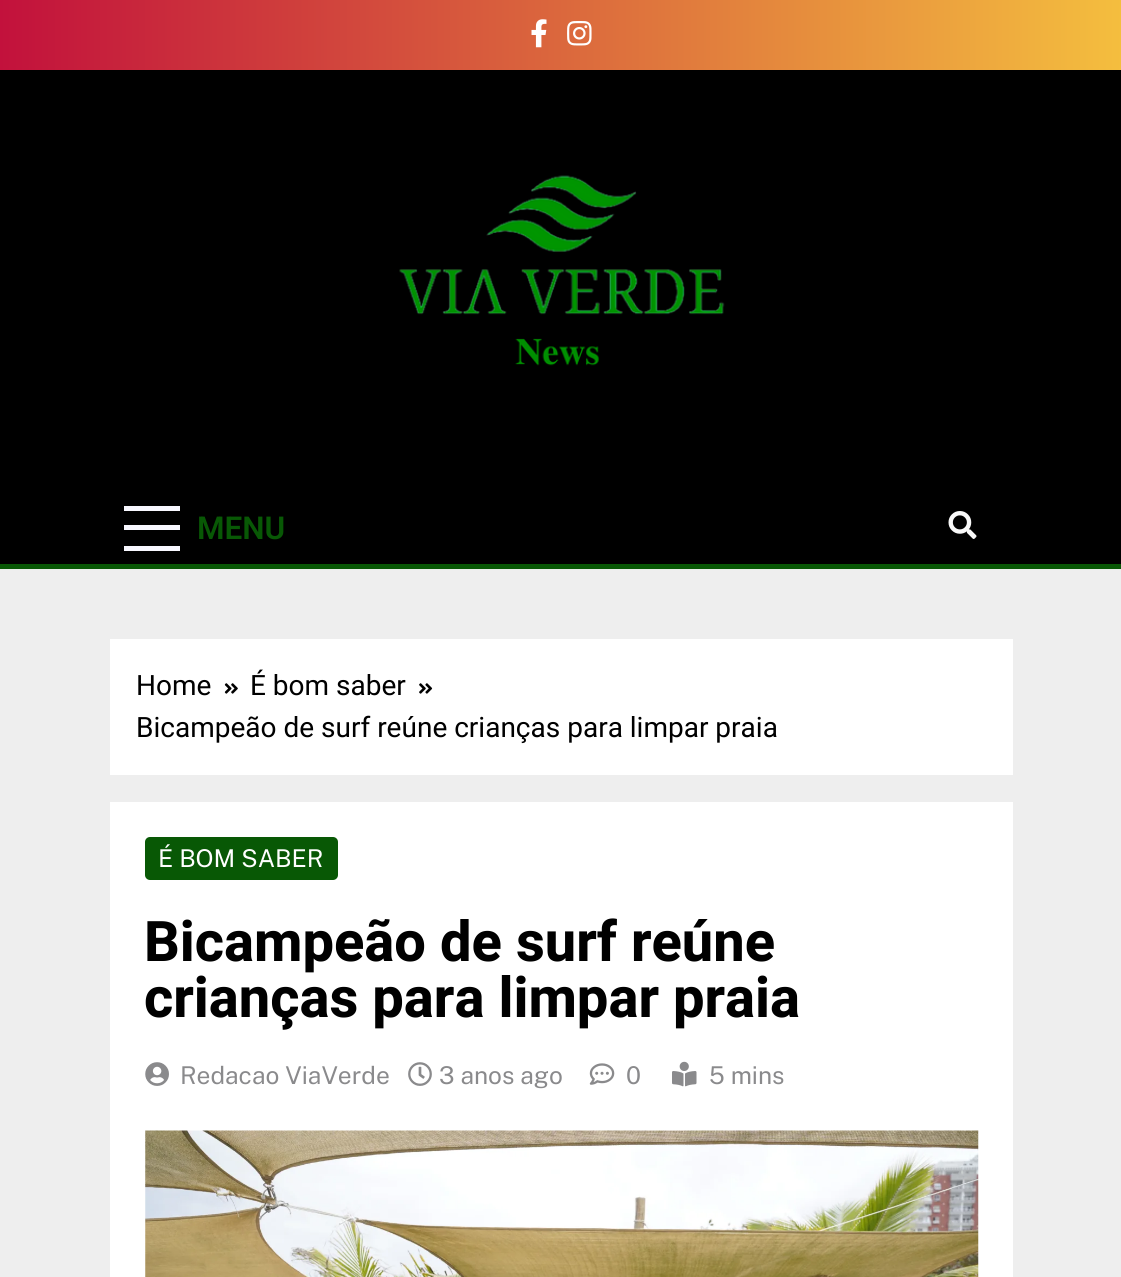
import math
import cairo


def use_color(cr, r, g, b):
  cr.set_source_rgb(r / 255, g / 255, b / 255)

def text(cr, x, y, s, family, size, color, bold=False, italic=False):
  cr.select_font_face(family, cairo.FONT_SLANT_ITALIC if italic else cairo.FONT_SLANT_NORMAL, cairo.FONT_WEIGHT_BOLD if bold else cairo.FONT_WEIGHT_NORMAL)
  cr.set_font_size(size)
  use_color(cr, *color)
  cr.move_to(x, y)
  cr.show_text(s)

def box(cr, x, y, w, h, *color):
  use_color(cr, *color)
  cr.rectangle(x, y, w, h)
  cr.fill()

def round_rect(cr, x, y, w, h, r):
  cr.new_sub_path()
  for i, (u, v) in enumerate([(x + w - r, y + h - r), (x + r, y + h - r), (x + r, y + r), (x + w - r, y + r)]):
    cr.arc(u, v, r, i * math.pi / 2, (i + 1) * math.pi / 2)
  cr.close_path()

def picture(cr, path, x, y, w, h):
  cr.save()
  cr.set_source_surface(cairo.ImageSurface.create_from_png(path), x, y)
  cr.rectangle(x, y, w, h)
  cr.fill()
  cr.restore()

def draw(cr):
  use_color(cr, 238, 238, 238)
  cr.paint()
  gradient = cairo.LinearGradient(0, 35, 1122, 35)
  gradient.add_color_stop_rgba(0, 0.761, 0.067, 0.235, 1)
  gradient.add_color_stop_rgba(1, 0.957, 0.745, 0.243, 1)
  cr.set_source(gradient)
  cr.rectangle(0, 0, 1121, 70)
  cr.fill()
  picture(cr, "img_01.png", 531, 19, 16, 29)
  picture(cr, "img_02.png", 567, 21, 25, 25)
  box(cr, 0, 70, 1121, 494, 0, 0, 0)
  picture(cr, "img_03.png", 399, 175, 326, 191)
  box(cr, 0, 564, 1121, 5, 8, 88, 5)
  box(cr, 124, 506, 56, 5, 248, 248, 255)
  box(cr, 124, 525, 56, 5, 248, 248, 255)
  box(cr, 124, 546, 56, 5, 248, 248, 255)
  picture(cr, "img_04.png", 948, 511, 29, 28)
  box(cr, 110, 639, 903, 136, 255, 255, 255)
  picture(cr, "img_05.png", 224, 683, 14, 11)
  picture(cr, "img_06.png", 419, 683, 14, 11)
  box(cr, 110, 802, 903, 475, 255, 255, 255)
  use_color(cr, 8, 88, 5)
  round_rect(cr, 145, 837, 193, 43, 5)
  cr.fill()
  picture(cr, "img_07.png", 145, 1062, 24, 24)
  picture(cr, "img_08.png", 408, 1062, 24, 24)
  picture(cr, "img_09.png", 589, 1063, 26, 22)
  picture(cr, "img_10.png", 672, 1061, 25, 26)
  picture(cr, "img_11.png", 145, 1130, 834, 147)
  text(cr, 197, 539, "MENU", "Roboto SemiBold", 31.5, (8, 88, 5))
  text(cr, 136, 695, "Home", "Heebo", 28, (0, 0, 0))
  text(cr, 250, 695, "É bom saber", "Heebo", 28, (0, 0, 0))
  text(cr, 136, 737, "Bicampeão de surf reúne crianças para limpar praia", "Heebo", 28, (0, 0, 0))
  text(cr, 158, 867, "É BOM SABER", "Public Sans", 24.5, (255, 255, 255))
  text(cr, 144, 961, "Bicampeão de surf reúne", "Heebo", 56, (0, 0, 0), bold=True)
  text(cr, 144, 1017, "crianças para limpar praia", "Heebo", 56, (0, 0, 0), bold=True)
  text(cr, 180, 1084, "Redacao ViaVerde", "Public Sans", 24.5, (138, 138, 140))
  text(cr, 439, 1084, "3 anos ago", "Public Sans", 24.5, (138, 138, 140))
  text(cr, 626, 1084, "0", "Public Sans", 24.5, (138, 138, 140))
  text(cr, 709, 1084, "5 mins", "Public Sans", 24.5, (138, 138, 140))


surface = cairo.ImageSurface(cairo.FORMAT_RGB24, 1121, 1277)
cr = cairo.Context(surface)
options = cairo.FontOptions()
options.set_hint_metrics(cairo.HINT_METRICS_OFF)
options.set_hint_style(cairo.HINT_STYLE_NONE)
cr.set_font_options(options)
cr.set_miter_limit(4)
draw(cr)
surface.write_to_png("out.png")
